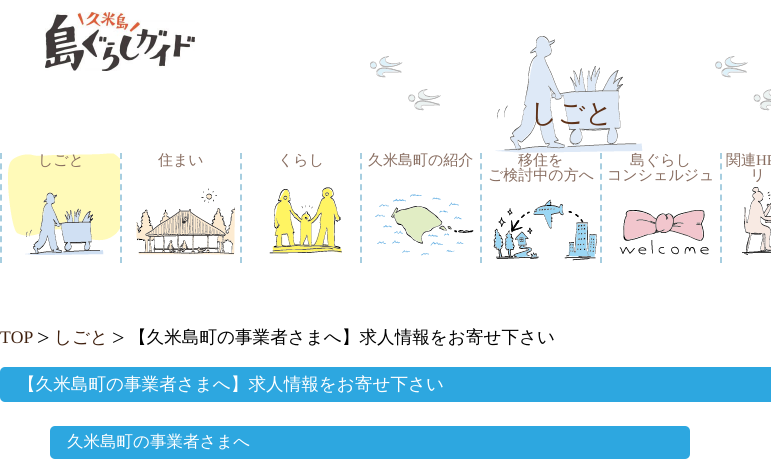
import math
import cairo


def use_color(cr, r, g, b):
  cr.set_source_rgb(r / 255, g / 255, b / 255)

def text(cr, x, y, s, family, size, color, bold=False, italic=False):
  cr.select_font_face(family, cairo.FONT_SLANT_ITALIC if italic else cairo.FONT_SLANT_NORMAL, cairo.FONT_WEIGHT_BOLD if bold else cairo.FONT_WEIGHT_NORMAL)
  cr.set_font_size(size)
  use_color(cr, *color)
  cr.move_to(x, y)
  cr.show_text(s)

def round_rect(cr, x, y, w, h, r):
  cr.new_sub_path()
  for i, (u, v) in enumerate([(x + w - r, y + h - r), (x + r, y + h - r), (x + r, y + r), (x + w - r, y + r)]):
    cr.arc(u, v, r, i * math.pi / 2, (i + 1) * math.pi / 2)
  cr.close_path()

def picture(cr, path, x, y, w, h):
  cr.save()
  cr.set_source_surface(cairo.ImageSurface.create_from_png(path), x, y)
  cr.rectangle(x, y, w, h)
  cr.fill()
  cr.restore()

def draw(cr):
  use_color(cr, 255, 255, 255)
  cr.paint()
  picture(cr, "img_01.png", 370, 36, 401, 117)
  picture(cr, "img_02.png", 45, 12, 150, 59)
  cr.new_path()
  cr.move_to(1, 153)
  cr.line_to(1, 263)
  use_color(cr, 167, 206, 224)
  cr.set_dash([6, 4.4])
  cr.stroke()
  picture(cr, "img_03.png", 8, 153, 112, 102)
  cr.new_path()
  cr.move_to(121, 153)
  cr.line_to(121, 263)
  cr.stroke()
  picture(cr, "img_04.png", 136, 188, 99, 67)
  cr.new_path()
  cr.move_to(241, 153)
  cr.line_to(241, 263)
  cr.stroke()
  picture(cr, "img_05.png", 269, 187, 73, 67)
  cr.new_path()
  cr.move_to(361, 153)
  cr.line_to(361, 263)
  cr.stroke()
  picture(cr, "img_06.png", 375, 194, 99, 62)
  cr.new_path()
  cr.move_to(481, 153)
  cr.line_to(481, 263)
  cr.stroke()
  picture(cr, "img_07.png", 493, 199, 104, 62)
  cr.new_path()
  cr.move_to(601, 153)
  cr.line_to(601, 263)
  cr.stroke()
  picture(cr, "img_08.png", 619, 210, 90, 45)
  cr.new_path()
  cr.move_to(721, 153)
  cr.line_to(721, 263)
  cr.stroke()
  picture(cr, "img_09.png", 742, 187, 29, 68)
  use_color(cr, 45, 167, 224)
  round_rect(cr, 0, 367, 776, 35, 5)
  cr.fill()
  round_rect(cr, 50, 426, 640, 33, 5)
  cr.fill()
  text(cr, 530, 122, "しごと", "WenQuanYi Zen Hei Medium", 27, (93, 49, 24))
  text(cr, 38, 165, "しごと", "WenQuanYi Zen Hei Medium", 15, (136, 109, 96))
  text(cr, 158, 165, "住まい", "WenQuanYi Zen Hei Medium", 15, (136, 109, 96))
  text(cr, 278, 165, "くらし", "WenQuanYi Zen Hei Medium", 15, (136, 109, 96))
  text(cr, 368, 165, "久米島町の紹介", "WenQuanYi Zen Hei Medium", 15, (136, 109, 96))
  text(cr, 518, 165, "移住を", "WenQuanYi Zen Hei Medium", 15, (136, 109, 96))
  text(cr, 488, 180, "ご検討中の方へ", "WenQuanYi Zen Hei Medium", 15, (136, 109, 96))
  text(cr, 630, 165, "島ぐらし", "WenQuanYi Zen Hei Medium", 15, (136, 109, 96))
  text(cr, 607, 180, "コンシェルジュ", "WenQuanYi Zen Hei Medium", 15, (136, 109, 96))
  text(cr, 726, 165, "関連", "WenQuanYi Zen Hei Medium", 15, (136, 109, 96))
  text(cr, 756, 165, "HP", "Liberation Serif", 15, (136, 109, 96))
  text(cr, 750, 180, "リ", "WenQuanYi Zen Hei Medium", 15, (136, 109, 96))
  text(cr, 0, 343, "TOP", "Liberation Serif", 17.6, (64, 33, 15))
  text(cr, 37, 345, ">", "Liberation Serif", 22, (0, 0, 0))
  text(cr, 54, 343, "しごと", "WenQuanYi Zen Hei Medium", 17.6, (64, 33, 15))
  text(cr, 112, 345, ">", "Liberation Serif", 22, (0, 0, 0))
  text(cr, 129, 343, "【久米島町の事業者さまへ】求人情報をお寄せ下さい", "WenQuanYi Zen Hei Medium", 17.6, (0, 0, 0))
  text(cr, 18, 390, "【久米島町の事業者さまへ】求人情報をお寄せ下さい", "WenQuanYi Zen Hei Medium", 17.6, (255, 255, 255))
  text(cr, 67, 447, "久米島町の事業者さまへ", "WenQuanYi Zen Hei Medium", 16.5, (255, 255, 255))


surface = cairo.ImageSurface(cairo.FORMAT_RGB24, 771, 471)
cr = cairo.Context(surface)
options = cairo.FontOptions()
options.set_hint_metrics(cairo.HINT_METRICS_OFF)
options.set_hint_style(cairo.HINT_STYLE_NONE)
cr.set_font_options(options)
cr.set_miter_limit(4)
draw(cr)
surface.write_to_png("out.png")
